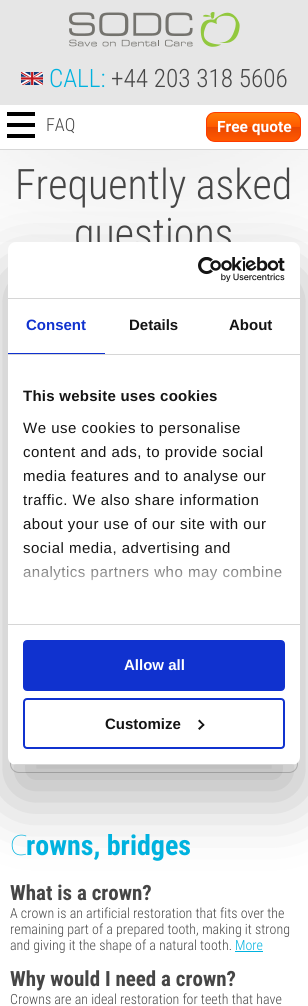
import math
import cairo


def use_color(cr, r, g, b):
  cr.set_source_rgb(r / 255, g / 255, b / 255)

def text(cr, x, y, s, family, size, color, bold=False, italic=False):
  cr.select_font_face(family, cairo.FONT_SLANT_ITALIC if italic else cairo.FONT_SLANT_NORMAL, cairo.FONT_WEIGHT_BOLD if bold else cairo.FONT_WEIGHT_NORMAL)
  cr.set_font_size(size)
  use_color(cr, *color)
  cr.move_to(x, y)
  cr.show_text(s)

def spaced_text(cr, x, y, s, letter, word):
  cr.move_to(x, y)
  for ch in s:
    cr.show_text(ch)
    cr.rel_move_to(letter + word * (ch == ' '), 0)

def box(cr, x, y, w, h, *color):
  use_color(cr, *color)
  cr.rectangle(x, y, w, h)
  cr.fill()

def round_rect(cr, x, y, w, h, r):
  cr.new_sub_path()
  for i, (u, v) in enumerate([(x + w - r, y + h - r), (x + r, y + h - r), (x + r, y + r), (x + w - r, y + r)]):
    cr.arc(u, v, r, i * math.pi / 2, (i + 1) * math.pi / 2)
  cr.close_path()

def shadow(cr, x, y, w, h, r, blur, alpha):
  cr.push_group_with_content(cairo.CONTENT_ALPHA)
  cr.set_operator(cairo.OPERATOR_SOURCE)
  for i in range(15, -16, -2):
    e = blur * i / 6
    if min(w, h) + 2 * e > 0:
      cr.set_source_rgba(0, 0, 0, alpha * math.erfc((i - 1) / 8.5) / 2)
      round_rect(cr, x - e, y - e, w + 2 * e, h + 2 * e, max(0, min(r + e + blur * .6, min(w, h) / 2 + e)))
      cr.fill()
  cr.mask(cr.pop_group())

def picture(cr, path, x, y, w, h):
  cr.save()
  cr.set_source_surface(cairo.ImageSurface.create_from_png(path), x, y)
  cr.rectangle(x, y, w, h)
  cr.fill()
  cr.restore()

def draw(cr):
  use_color(cr, 255, 255, 255)
  cr.paint()
  box(cr, 0, 149, 308, 1, 215, 215, 215)
  box(cr, 0, 0, 308, 105, 230, 230, 230)
  picture(cr, "img_01.png", 69, 12, 171, 35)
  picture(cr, "img_02.png", 21, 72, 22, 13)
  box(cr, 7, 112, 28, 4, 0, 0, 0)
  box(cr, 7, 123, 28, 4, 0, 0, 0)
  box(cr, 7, 134, 28, 4, 0, 0, 0)
  cr.save()
  round_rect(cr, 206, 112, 95, 30, 9)
  cr.clip()
  gradient = cairo.LinearGradient(254, 113, 254, 141)
  gradient.add_color_stop_rgba(0, 1, 0.482, 0.027, 1)
  gradient.add_color_stop_rgba(0.5, 1, 0.349, 0, 1)
  gradient.add_color_stop_rgba(0.51, 0.918, 0.282, 0.008, 1)
  gradient.add_color_stop_rgba(1, 1, 0.349, 0, 1)
  cr.set_source(gradient)
  cr.rectangle(206, 113, 95, 28)
  cr.fill()
  cr.restore()
  round_rect(cr, 206.5, 112.5, 94, 29, 8.5)
  use_color(cr, 255, 59, 0)
  cr.set_line_width(1)
  cr.stroke()
  picture(cr, "img_03.png", 0, 150, 308, 92)
  round_rect(cr, 10.5, 445.5, 287, 327, 8.5)
  use_color(cr, 204, 204, 204)
  cr.stroke()
  box(cr, 235, 951, 28, 1, 0, 178, 223)
  use_color(cr, 0, 0, 0)
  shadow(cr, 8, 274, 292, 523, 8, 34, 0.3)
  text(cr, 49, 87, "CALL:", "Roboto Condensed Light", 25.25, (0, 178, 223))
  text(cr, 111, 87, "+44 203 318 5606", "Roboto Condensed Light", 25.25, (70, 70, 70))
  text(cr, 46, 131, "FAQ", "Roboto Condensed Light", 18, (70, 70, 70))
  text(cr, 217, 132, "Free quote", "Roboto", 15.5, (255, 255, 255), bold=True)
  text(cr, 15, 199, "Frequently asked", "Roboto Condensed Light", 42, (70, 70, 70))
  text(cr, 74, 248, "questions", "Roboto Condensed Light", 42, (70, 70, 70))
  text(cr, 10, 855, "C", "Noto Sans Thin", 28, (0, 178, 223))
  text(cr, 26, 855, "rowns, bridges", "Roboto Condensed", 28, (0, 178, 223), bold=True)
  text(cr, 10, 900, "What is a crown?", "Roboto Condensed", 21, (70, 70, 70), bold=True)
  text(cr, 10, 918, "A crown is an artificial restoration that fits over the", "Roboto Condensed Light", 14, (70, 70, 70))
  text(cr, 10, 934, "remaining part of a prepared tooth, making it strong", "Roboto Condensed Light", 14, (70, 70, 70))
  text(cr, 10, 950, "and giving it the shape of a natural tooth.", "Roboto Condensed Light", 14, (70, 70, 70))
  text(cr, 235, 950, "More", "Roboto Condensed Light", 14, (0, 178, 223))
  text(cr, 10, 986, "Why would I need a crown?", "Roboto Condensed", 21, (70, 70, 70), bold=True)
  text(cr, 10, 1004, "Crowns are an ideal restoration for teeth that have", "Roboto Condensed Light", 14, (70, 70, 70))
  use_color(cr, 255, 255, 255)
  round_rect(cr, 8, 242, 292, 523, 8)
  cr.fill()
  box(cr, 8, 298, 292, 1, 214, 214, 214)
  picture(cr, "img_04.png", 198, 257, 87, 25)
  box(cr, 8, 354, 292, 1, 214, 214, 214)
  box(cr, 8, 353, 97, 1, 16, 50, 207)
  text(cr, 26, 330, "Consent", "Liberation Sans", 15, (16, 50, 207), bold=True)
  text(cr, 129, 330, "Details", "Liberation Sans", 15, (20, 20, 20), bold=True)
  text(cr, 229, 330, "About", "Liberation Sans", 15, (20, 20, 20), bold=True)
  box(cr, 8, 624, 292, 1, 214, 214, 214)
  use_color(cr, 20, 20, 20)
  spaced_text(cr, 23, 401, "This website uses cookies", 0.25, 0)
  cr.select_font_face("Liberation Sans")
  spaced_text(cr, 23, 433, "We use cookies to personalise", 0.5, 0)
  spaced_text(cr, 23, 457, "content and ads, to provide social", 0.5, 0)
  spaced_text(cr, 23, 481, "media features and to analyse our", 0.5, 0)
  spaced_text(cr, 23, 505, "traffic. We also share information", 0.5, 0)
  spaced_text(cr, 23, 529, "about your use of our site with our", 0.5, 0)
  spaced_text(cr, 23, 553, "social media, advertising and", 0.5, 0)
  spaced_text(cr, 23, 577, "analytics partners who may combine", 0.5, 0)
  gradient = cairo.LinearGradient(148, 624, 148, 549)
  gradient.add_color_stop_rgba(0, 1, 1, 1, 1)
  gradient.add_color_stop_rgba(0.5, 1, 1, 1, 0.8)
  gradient.add_color_stop_rgba(1, 1, 1, 1, 0)
  cr.set_source(gradient)
  cr.rectangle(23, 550, 259, 31)
  cr.fill()
  cr.save()
  round_rect(cr, 8, 242, 292, 523, 8)
  cr.clip()
  box(cr, 8, 764, 292, 1, 214, 214, 214)
  cr.restore()
  use_color(cr, 16, 50, 207)
  round_rect(cr, 24, 641, 260, 49, 3)
  cr.fill_preserve()
  cr.set_line_width(2)
  cr.stroke()
  text(cr, 124, 670, "Allow all", "Liberation Sans", 15, (255, 255, 255), bold=True)
  round_rect(cr, 24, 699, 260, 49, 3)
  use_color(cr, 16, 50, 207)
  cr.stroke()
  text(cr, 105, 729, "Customize", "Liberation Sans", 15, (20, 20, 20), bold=True)
  cr.new_path()
  cr.move_to(199.5, 719.5)
  cr.line_to(204.5, 725)
  cr.line_to(203.5, 726)
  cr.line_to(198, 721)
  cr.close_path()
  cr.fill()
  cr.new_path()
  cr.move_to(203.5, 723.5)
  cr.line_to(204.5, 725)
  cr.line_to(199.5, 730)
  cr.line_to(198, 728.5)
  cr.close_path()
  cr.fill()


surface = cairo.ImageSurface(cairo.FORMAT_RGB24, 308, 1006)
cr = cairo.Context(surface)
options = cairo.FontOptions()
options.set_hint_metrics(cairo.HINT_METRICS_OFF)
options.set_hint_style(cairo.HINT_STYLE_NONE)
cr.set_font_options(options)
cr.set_miter_limit(4)
draw(cr)
surface.write_to_png("out.png")
